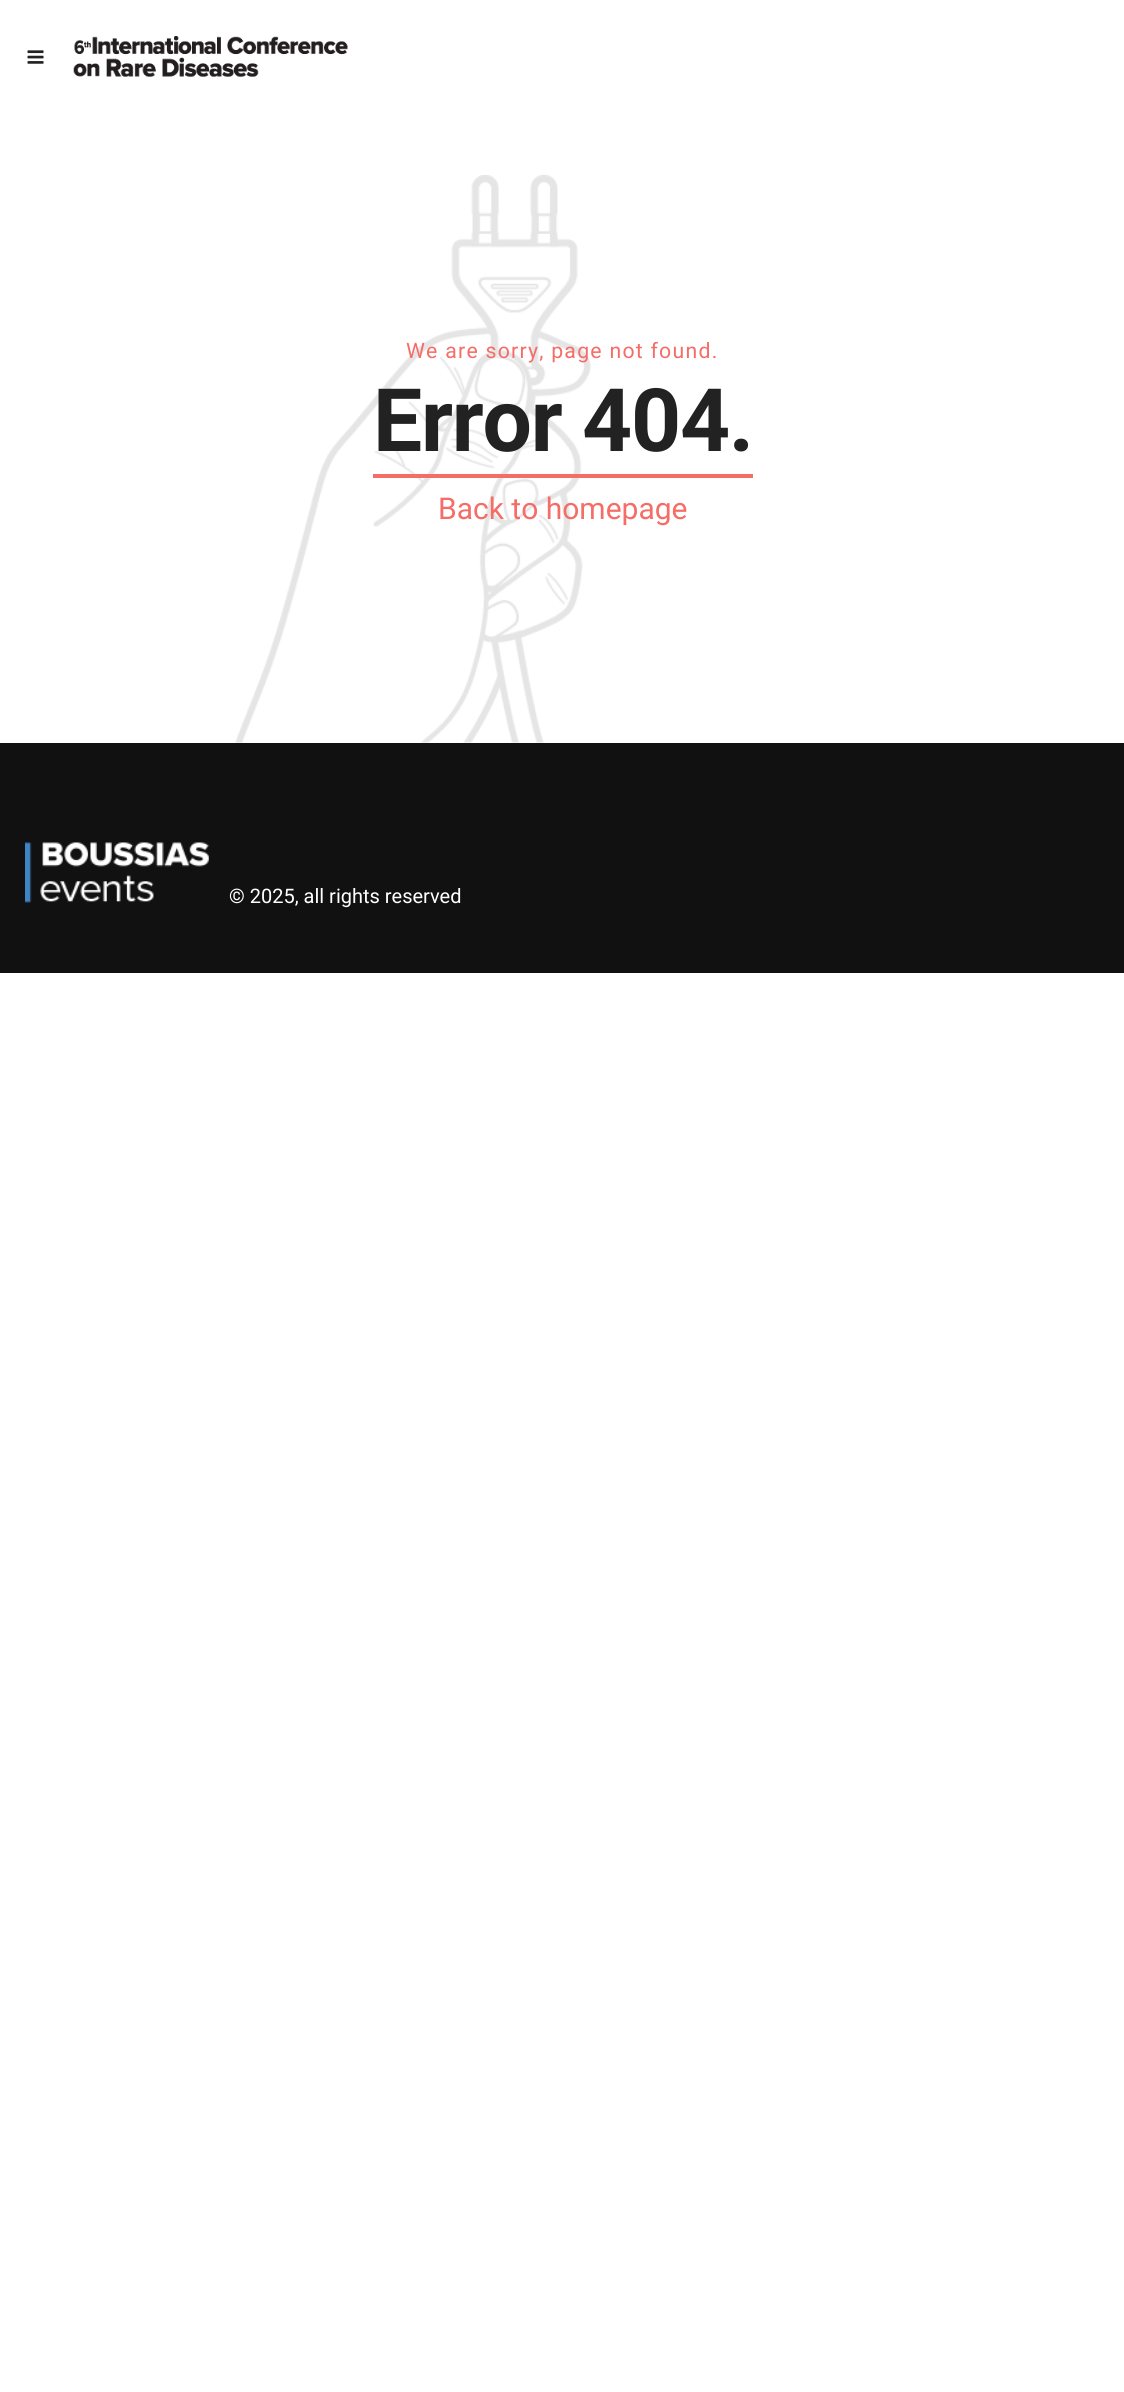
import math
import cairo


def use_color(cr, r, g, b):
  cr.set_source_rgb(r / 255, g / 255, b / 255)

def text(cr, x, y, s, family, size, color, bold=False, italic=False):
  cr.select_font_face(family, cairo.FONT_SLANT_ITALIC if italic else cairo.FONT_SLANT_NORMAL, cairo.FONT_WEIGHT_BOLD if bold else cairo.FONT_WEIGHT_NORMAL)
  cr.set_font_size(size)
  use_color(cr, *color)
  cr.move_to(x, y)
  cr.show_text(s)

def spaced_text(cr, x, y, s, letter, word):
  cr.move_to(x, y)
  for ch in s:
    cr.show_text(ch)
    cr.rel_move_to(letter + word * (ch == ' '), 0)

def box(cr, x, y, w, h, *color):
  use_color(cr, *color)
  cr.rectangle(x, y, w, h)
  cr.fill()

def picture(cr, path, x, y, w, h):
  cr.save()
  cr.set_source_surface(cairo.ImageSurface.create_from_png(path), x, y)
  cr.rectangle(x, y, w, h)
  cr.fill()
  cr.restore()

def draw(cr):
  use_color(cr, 255, 255, 255)
  cr.paint()
  picture(cr, "img_01.png", 27, 50, 17, 14)
  picture(cr, "img_02.png", 73, 36, 275, 41)
  picture(cr, "img_03.png", 235, 175, 356, 568)
  box(cr, 373, 474, 380, 4, 244, 109, 103)
  box(cr, 0, 743, 1124, 230, 17, 17, 17)
  picture(cr, "img_04.png", 25, 842, 184, 61)
  cr.select_font_face("Roboto")
  cr.set_font_size(21.25)
  use_color(cr, 244, 109, 103)
  spaced_text(cr, 406, 358, "We are sorry, page not found.", 1.25, 0)
  cr.select_font_face("Roboto", cairo.FONT_SLANT_NORMAL, cairo.FONT_WEIGHT_BOLD)
  cr.set_font_size(87.5)
  use_color(cr, 34, 34, 34)
  spaced_text(cr, 373, 451, "Error 404.", -1.25, 0)
  text(cr, 438, 519, "Back to homepage", "Roboto", 30, (244, 109, 103))
  text(cr, 229, 903, "© 2025, all rights reserved", "Roboto", 20, (255, 255, 255))


surface = cairo.ImageSurface(cairo.FORMAT_RGB24, 1124, 2392)
cr = cairo.Context(surface)
options = cairo.FontOptions()
options.set_hint_metrics(cairo.HINT_METRICS_OFF)
options.set_hint_style(cairo.HINT_STYLE_NONE)
cr.set_font_options(options)
cr.set_miter_limit(4)
draw(cr)
surface.write_to_png("out.png")
